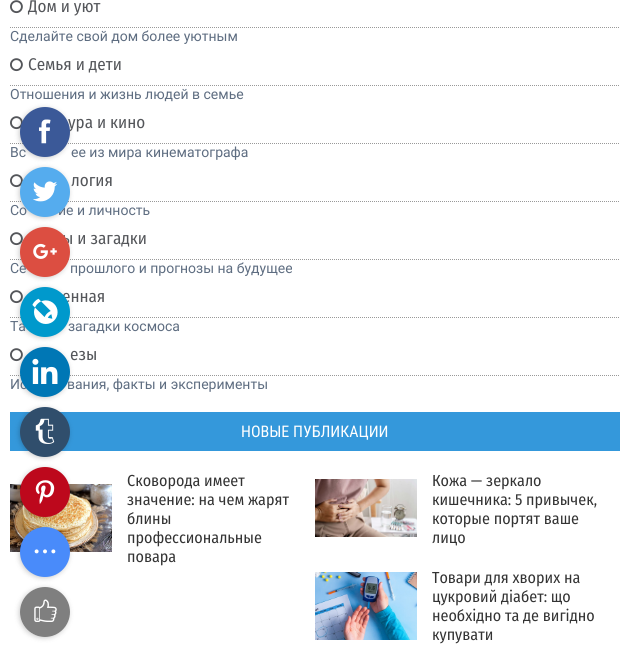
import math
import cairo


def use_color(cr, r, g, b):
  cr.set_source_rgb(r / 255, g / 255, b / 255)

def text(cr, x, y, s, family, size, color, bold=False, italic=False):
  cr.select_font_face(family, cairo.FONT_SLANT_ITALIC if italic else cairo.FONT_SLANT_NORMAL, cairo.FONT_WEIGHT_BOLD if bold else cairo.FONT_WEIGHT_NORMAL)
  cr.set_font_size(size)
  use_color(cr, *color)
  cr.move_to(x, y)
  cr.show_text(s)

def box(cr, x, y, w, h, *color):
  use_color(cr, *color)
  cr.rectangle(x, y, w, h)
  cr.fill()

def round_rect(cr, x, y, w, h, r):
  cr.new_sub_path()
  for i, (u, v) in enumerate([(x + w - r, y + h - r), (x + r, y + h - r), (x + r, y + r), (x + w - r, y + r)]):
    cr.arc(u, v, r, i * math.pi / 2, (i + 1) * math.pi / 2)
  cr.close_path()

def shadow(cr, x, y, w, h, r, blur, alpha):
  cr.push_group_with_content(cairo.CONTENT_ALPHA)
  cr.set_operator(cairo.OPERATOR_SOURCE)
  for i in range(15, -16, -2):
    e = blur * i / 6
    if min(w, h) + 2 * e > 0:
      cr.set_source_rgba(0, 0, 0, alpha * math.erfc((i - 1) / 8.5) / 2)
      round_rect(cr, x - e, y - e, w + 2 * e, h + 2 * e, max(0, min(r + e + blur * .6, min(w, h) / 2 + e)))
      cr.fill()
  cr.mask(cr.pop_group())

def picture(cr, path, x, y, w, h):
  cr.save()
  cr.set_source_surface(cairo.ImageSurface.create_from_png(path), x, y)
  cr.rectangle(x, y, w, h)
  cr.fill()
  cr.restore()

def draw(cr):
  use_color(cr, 255, 255, 255)
  cr.paint()
  cr.new_path()
  cr.move_to(10, 27.5)
  cr.line_to(620, 27.5)
  use_color(cr, 153, 153, 153)
  cr.set_line_width(1)
  cr.set_dash([1, 1])
  cr.stroke()
  picture(cr, "img_01.png", 10, 0, 13, 14)
  cr.new_path()
  cr.move_to(10, 85.5)
  cr.line_to(620, 85.5)
  cr.stroke()
  picture(cr, "img_01.png", 10, 58, 13, 14)
  cr.new_path()
  cr.move_to(10, 143.5)
  cr.line_to(620, 143.5)
  cr.stroke()
  picture(cr, "img_01.png", 10, 116, 13, 14)
  cr.new_path()
  cr.move_to(10, 201.5)
  cr.line_to(620, 201.5)
  cr.stroke()
  picture(cr, "img_01.png", 10, 174, 13, 14)
  cr.new_path()
  cr.move_to(10, 259.5)
  cr.line_to(620, 259.5)
  cr.stroke()
  picture(cr, "img_01.png", 10, 232, 13, 14)
  cr.new_path()
  cr.move_to(10, 317.5)
  cr.line_to(620, 317.5)
  cr.stroke()
  picture(cr, "img_01.png", 10, 290, 13, 14)
  cr.new_path()
  cr.move_to(10, 375.5)
  cr.line_to(620, 375.5)
  cr.stroke()
  picture(cr, "img_01.png", 10, 348, 13, 14)
  box(cr, 10, 412, 610, 39, 52, 152, 219)
  picture(cr, "img_02.png", 10, 484, 102, 68)
  picture(cr, "img_03.png", 315, 479, 102, 58)
  picture(cr, "img_04.png", 315, 572, 102, 68)
  use_color(cr, 0, 0, 0)
  shadow(cr, 19, 108, 50, 50, 25, 2.5, 0.2)
  shadow(cr, 19, 168, 50, 50, 25, 2.5, 0.2)
  shadow(cr, 19, 228, 50, 50, 25, 2.5, 0.2)
  shadow(cr, 19, 288, 50, 50, 25, 2.5, 0.2)
  shadow(cr, 19, 348, 50, 50, 25, 2.5, 0.2)
  shadow(cr, 19, 408, 50, 50, 25, 2.5, 0.2)
  use_color(cr, 48, 78, 108)
  cr.arc(45, 432, 25, 0, 2 * math.pi)
  cr.fill()
  picture(cr, "img_10.png", 35, 418, 20, 26)
  use_color(cr, 0, 0, 0)
  shadow(cr, 19, 468, 50, 50, 25, 2.5, 0.2)
  use_color(cr, 189, 8, 28)
  cr.arc(45, 492, 25, 0, 2 * math.pi)
  cr.fill()
  picture(cr, "img_11.png", 35, 480, 20, 24)
  use_color(cr, 0, 0, 0)
  shadow(cr, 19, 528, 50, 50, 25, 2.5, 0.2)
  use_color(cr, 73, 139, 250)
  cr.arc(45, 552, 25, 0, 2 * math.pi)
  cr.fill()
  picture(cr, "img_12.png", 34, 549, 22, 5)
  cr.save()
  cr.set_fill_rule(cairo.FILL_RULE_EVEN_ODD)
  cr.new_path()
  cr.move_to(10, 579)
  cr.line_to(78, 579)
  cr.line_to(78, 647)
  cr.line_to(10, 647)
  cr.close_path()
  cr.move_to(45, 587)
  cr.curve_to(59, 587, 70, 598, 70, 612)
  cr.curve_to(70, 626, 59, 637, 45, 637)
  cr.curve_to(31, 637, 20, 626, 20, 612)
  cr.curve_to(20, 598, 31, 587, 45, 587)
  cr.close_path()
  cr.clip()
  use_color(cr, 0, 0, 0)
  shadow(cr, 19, 588, 50, 50, 25, 2.5, 0.2)
  cr.restore()
  cr.set_source_rgba(0, 0, 0, 0.5)
  cr.arc(45, 612, 25, 0, 2 * math.pi)
  cr.fill()
  picture(cr, "img_13.png", 34, 599, 23, 23)
  text(cr, 28, 12, "Дом и уют", "Fira Sans Condensed", 17, (84, 86, 90))
  text(cr, 10, 41, "Сделайте свой дом более уютным", "Roboto", 14, (94, 109, 129))
  text(cr, 28, 70, "Семья и дети", "Fira Sans Condensed", 17, (84, 86, 90))
  text(cr, 10, 99, "Отношения и жизнь людей в семье", "Roboto", 14, (94, 109, 129))
  text(cr, 68, 128, "ура и кино", "Fira Sans Condensed", 17, (84, 86, 90))
  text(cr, 10, 157, "Вс", "Roboto", 14, (94, 109, 129))
  text(cr, 71, 157, "ее из мира кинематографа", "Roboto", 14, (94, 109, 129))
  text(cr, 71, 186, "логия", "Fira Sans Condensed", 17, (84, 86, 90))
  text(cr, 10, 215, "Со", "Roboto", 14, (94, 109, 129))
  text(cr, 58, 215, "ие и личность", "Roboto", 14, (94, 109, 129))
  text(cr, 62, 244, "ы и загадки", "Fira Sans Condensed", 17, (84, 86, 90))
  text(cr, 10, 273, "Се", "Roboto", 14, (94, 109, 129))
  text(cr, 70, 273, "прошлого и прогнозы на будущее", "Roboto", 14, (94, 109, 129))
  text(cr, 62, 302, "енная", "Fira Sans Condensed", 17, (84, 86, 90))
  text(cr, 10, 331, "Та", "Roboto", 14, (94, 109, 129))
  text(cr, 68, 331, "загадки космоса", "Roboto", 14, (94, 109, 129))
  text(cr, 70, 360, "езы", "Fira Sans Condensed", 17, (84, 86, 90))
  text(cr, 10, 389, "Ис", "Roboto", 14, (94, 109, 129))
  text(cr, 67, 389, "вания, факты и эксперименты", "Roboto", 14, (94, 109, 129))
  text(cr, 241, 437, "НОВЫЕ ПУБЛИКАЦИИ", "Roboto Condensed", 16, (255, 255, 255))
  text(cr, 127, 486, "Сковорода имеет", "Fira Sans Condensed", 16, (51, 51, 51))
  text(cr, 127, 505, "значение: на чем жарят", "Fira Sans Condensed", 16, (51, 51, 51))
  text(cr, 127, 524, "блины", "Fira Sans Condensed", 16, (51, 51, 51))
  text(cr, 127, 543, "профессиональные", "Fira Sans Condensed", 16, (51, 51, 51))
  text(cr, 127, 562, "повара", "Fira Sans Condensed", 16, (51, 51, 51))
  text(cr, 432, 486, "Кожа — зеркало", "Fira Sans Condensed", 16, (51, 51, 51))
  text(cr, 432, 505, "кишечника: 5 привычек,", "Fira Sans Condensed", 16, (51, 51, 51))
  text(cr, 432, 524, "которые портят ваше", "Fira Sans Condensed", 16, (51, 51, 51))
  text(cr, 432, 543, "лицо", "Fira Sans Condensed", 16, (51, 51, 51))
  text(cr, 432, 583, "Товари для хворих на", "Fira Sans Condensed", 16, (51, 51, 51))
  text(cr, 432, 602, "цукровий діабет: що", "Fira Sans Condensed", 16, (51, 51, 51))
  text(cr, 432, 621, "необхідно та де вигідно", "Fira Sans Condensed", 16, (51, 51, 51))
  text(cr, 432, 640, "купувати", "Fira Sans Condensed", 16, (51, 51, 51))
  use_color(cr, 59, 89, 152)
  cr.new_path()
  cr.arc(45, 132, 25, 0, 2 * math.pi)
  cr.fill()
  picture(cr, "img_05.png", 39, 119, 12, 25)
  use_color(cr, 85, 172, 238)
  cr.arc(45, 192, 25, 0, 2 * math.pi)
  cr.fill()
  picture(cr, "img_06.png", 33, 181, 25, 21)
  use_color(cr, 220, 78, 65)
  cr.arc(45, 252, 25, 0, 2 * math.pi)
  cr.fill()
  picture(cr, "img_07.png", 33, 243, 24, 16)
  use_color(cr, 0, 153, 204)
  cr.arc(45, 312, 25, 0, 2 * math.pi)
  cr.fill()
  picture(cr, "img_08.png", 32, 298, 26, 26)
  use_color(cr, 0, 119, 181)
  cr.arc(45, 372, 25, 0, 2 * math.pi)
  cr.fill()
  picture(cr, "img_09.png", 32, 358, 26, 26)


surface = cairo.ImageSurface(cairo.FORMAT_RGB24, 630, 662)
cr = cairo.Context(surface)
options = cairo.FontOptions()
options.set_hint_metrics(cairo.HINT_METRICS_OFF)
options.set_hint_style(cairo.HINT_STYLE_NONE)
cr.set_font_options(options)
cr.set_miter_limit(4)
draw(cr)
surface.write_to_png("out.png")
